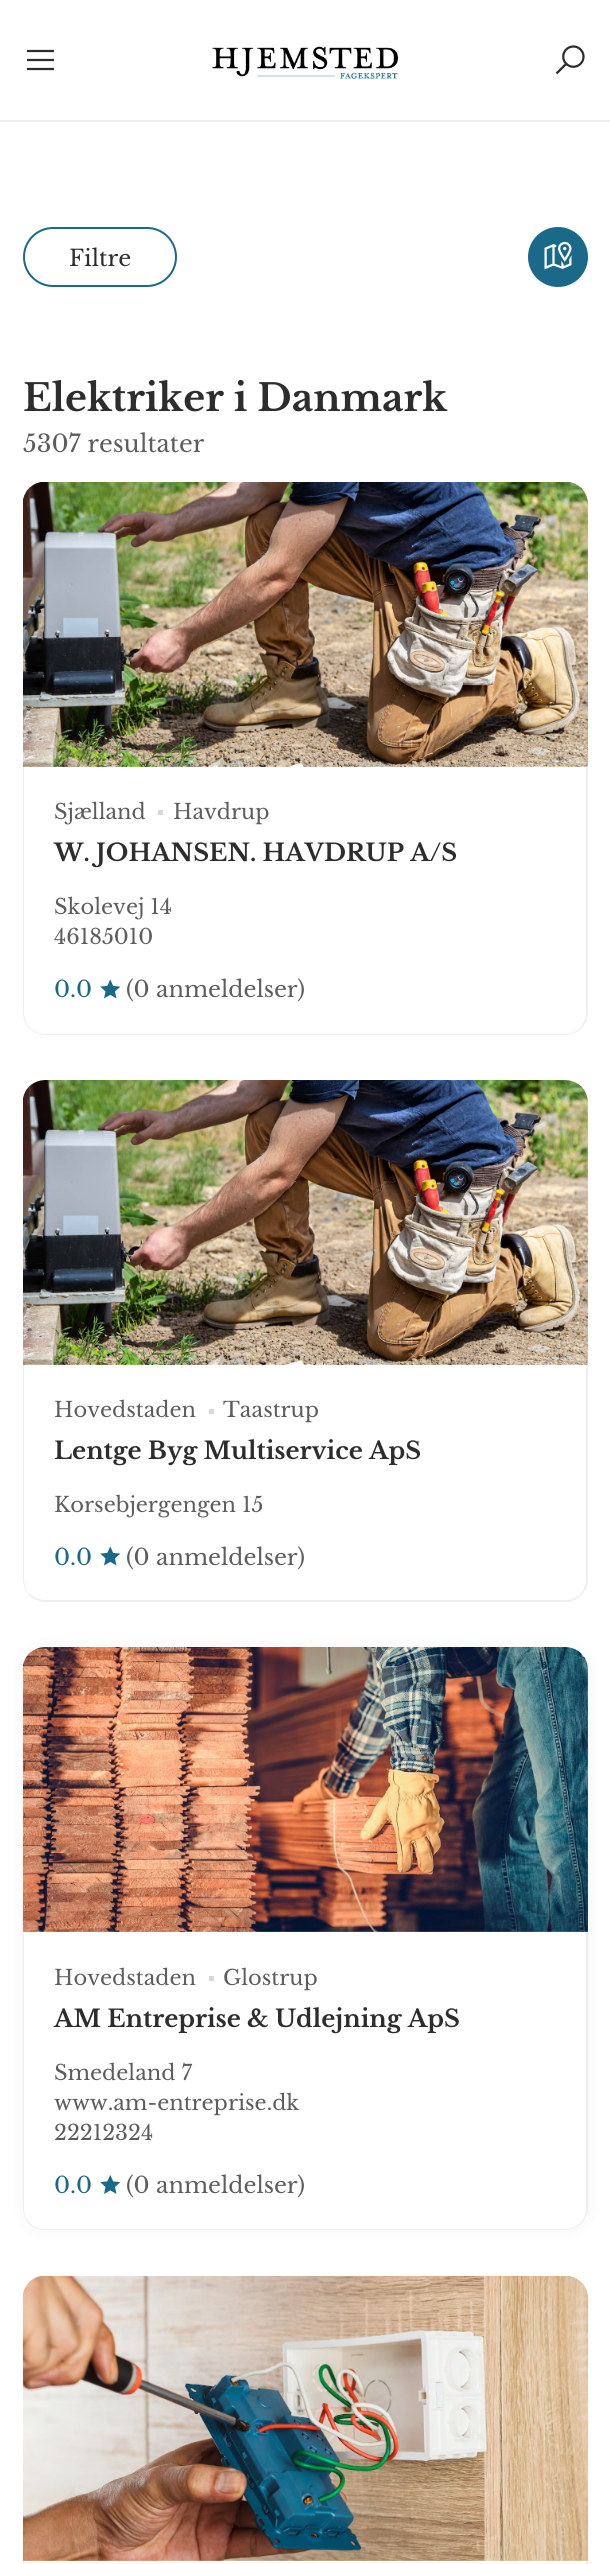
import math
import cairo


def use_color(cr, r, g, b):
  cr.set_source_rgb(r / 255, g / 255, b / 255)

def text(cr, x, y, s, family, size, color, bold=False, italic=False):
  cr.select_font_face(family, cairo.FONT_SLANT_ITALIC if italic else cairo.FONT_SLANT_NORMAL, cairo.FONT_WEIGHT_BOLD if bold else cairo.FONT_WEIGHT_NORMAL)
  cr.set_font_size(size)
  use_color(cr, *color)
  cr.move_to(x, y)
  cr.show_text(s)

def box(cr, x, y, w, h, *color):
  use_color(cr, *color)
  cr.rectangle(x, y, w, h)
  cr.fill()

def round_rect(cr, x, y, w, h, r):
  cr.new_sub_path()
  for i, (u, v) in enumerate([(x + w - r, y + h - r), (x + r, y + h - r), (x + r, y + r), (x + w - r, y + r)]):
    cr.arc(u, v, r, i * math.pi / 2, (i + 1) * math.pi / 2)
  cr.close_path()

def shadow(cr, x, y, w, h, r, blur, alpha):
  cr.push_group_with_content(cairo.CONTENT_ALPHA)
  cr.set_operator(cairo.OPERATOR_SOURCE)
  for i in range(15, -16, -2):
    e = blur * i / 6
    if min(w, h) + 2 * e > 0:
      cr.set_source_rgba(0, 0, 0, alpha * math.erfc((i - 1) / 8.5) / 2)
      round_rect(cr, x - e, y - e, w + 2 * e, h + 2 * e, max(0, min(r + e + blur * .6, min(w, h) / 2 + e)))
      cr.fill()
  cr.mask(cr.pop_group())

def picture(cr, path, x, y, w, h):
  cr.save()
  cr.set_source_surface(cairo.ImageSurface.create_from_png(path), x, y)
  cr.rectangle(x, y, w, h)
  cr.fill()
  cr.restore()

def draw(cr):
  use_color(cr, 255, 255, 255)
  cr.paint()
  picture(cr, "img_01.png", 27, 49, 27, 22)
  picture(cr, "img_02.png", 212, 46, 186, 33)
  picture(cr, "img_03.png", 555, 45, 30, 30)
  box(cr, 0, 120, 610, 2, 238, 238, 238)
  round_rect(cr, 24, 228, 152, 58, 29)
  use_color(cr, 26, 105, 136)
  cr.stroke()
  cr.arc(558, 257, 29, 0, 2 * math.pi)
  cr.fill_preserve()
  cr.stroke()
  picture(cr, "img_04.png", 544, 241, 28, 29)
  use_color(cr, 238, 238, 238)
  cr.new_path()
  cr.move_to(24, 766)
  cr.line_to(23, 766)
  cr.line_to(23, 1012)
  cr.curve_to(23, 1025, 33, 1035, 46, 1035)
  cr.line_to(565, 1035)
  cr.curve_to(578, 1035, 588, 1025, 588, 1012)
  cr.line_to(588, 766)
  cr.line_to(586, 766)
  cr.line_to(586, 1012)
  cr.curve_to(586, 1024, 577, 1034, 566, 1034)
  cr.line_to(45, 1034)
  cr.curve_to(33, 1034, 24, 1024, 24, 1012)
  cr.close_path()
  cr.fill()
  picture(cr, "img_05.png", 23, 482, 565, 285)
  box(cr, 158, 810, 5, 5, 216, 216, 216)
  picture(cr, "img_06.png", 100, 979, 21, 20)
  picture(cr, "img_07.png", 23, 1080, 565, 285)
  use_color(cr, 238, 238, 238)
  cr.new_path()
  cr.move_to(24, 1365)
  cr.line_to(23, 1365)
  cr.line_to(23, 1579)
  cr.curve_to(23, 1592, 33, 1602, 46, 1602)
  cr.line_to(565, 1602)
  cr.curve_to(578, 1602, 588, 1592, 588, 1579)
  cr.line_to(588, 1365)
  cr.line_to(586, 1365)
  cr.line_to(586, 1580)
  cr.curve_to(586, 1591, 577, 1600, 566, 1600)
  cr.line_to(45, 1600)
  cr.curve_to(33, 1600, 24, 1591, 24, 1580)
  cr.close_path()
  cr.fill()
  box(cr, 209, 1409, 5, 5, 216, 216, 216)
  picture(cr, "img_06.png", 100, 1546, 21, 20)
  use_color(cr, 0, 0, 0)
  shadow(cr, 23, 1647, 565, 584, 23, 7.5, 0.05)
  picture(cr, "img_08.png", 23, 1647, 565, 285)
  use_color(cr, 255, 255, 255)
  cr.new_path()
  cr.move_to(23, 1932)
  cr.line_to(588, 1932)
  cr.line_to(588, 2208)
  cr.curve_to(588, 2220.5, 577.5, 2231, 565, 2231)
  cr.line_to(46, 2231)
  cr.curve_to(33.5, 2231, 23, 2220.5, 23, 2208)
  cr.close_path()
  cr.fill()
  use_color(cr, 238, 238, 238)
  cr.new_path()
  cr.move_to(24, 1932)
  cr.line_to(24, 2208)
  cr.curve_to(24, 2220, 33, 2229, 45, 2229)
  cr.line_to(566, 2229)
  cr.curve_to(577, 2229, 586, 2220, 586, 2208)
  cr.line_to(586, 1932)
  cr.line_to(588, 1932)
  cr.line_to(588, 2208)
  cr.curve_to(588, 2220, 578, 2230, 566, 2230)
  cr.line_to(45, 2230)
  cr.curve_to(39, 2230, 33, 2228, 29, 2224)
  cr.curve_to(25, 2219, 23, 2214, 23, 2208)
  cr.line_to(23, 1932)
  cr.close_path()
  cr.fill()
  box(cr, 209, 1976, 5, 5, 216, 216, 216)
  picture(cr, "img_09.png", 100, 2175, 21, 19)
  use_color(cr, 238, 238, 238)
  cr.new_path()
  cr.move_to(24, 2560)
  cr.line_to(23, 2560)
  cr.line_to(23, 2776)
  cr.curve_to(23, 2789, 33, 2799, 46, 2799)
  cr.line_to(565, 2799)
  cr.curve_to(578, 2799, 588, 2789, 588, 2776)
  cr.line_to(588, 2560)
  cr.line_to(586, 2560)
  cr.line_to(586, 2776)
  cr.curve_to(586, 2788, 577, 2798, 566, 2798)
  cr.line_to(45, 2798)
  cr.curve_to(33, 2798, 24, 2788, 24, 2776)
  cr.close_path()
  cr.fill()
  picture(cr, "img_10.png", 23, 2276, 565, 285)
  text(cr, 69, 266, "Filtre", "Libre Baskerville", 22.5, (45, 45, 45))
  text(cr, 23, 411, "Elektriker i Danmark", "Libre Baskerville", 37.5, (45, 45, 45), bold=True)
  text(cr, 23, 452, "5307 resultater", "Libre Baskerville", 24, (93, 93, 93))
  text(cr, 54, 819, "Sjælland", "Libre Baskerville", 21, (93, 93, 93))
  text(cr, 173, 819, "Havdrup", "Libre Baskerville", 21, (93, 93, 93))
  text(cr, 54, 861, "W. JOHANSEN. HAVDRUP A/S", "Libre Baskerville", 24, (45, 45, 45), bold=True)
  text(cr, 54, 914, "Skolevej 14", "Libre Baskerville", 21, (93, 93, 93))
  text(cr, 54, 944, "46185010", "Libre Baskerville", 21, (93, 93, 93))
  text(cr, 54, 997, "0.0", "Libre Baskerville", 22.5, (26, 105, 136))
  text(cr, 126, 997, "(0 anmeldelser)", "Libre Baskerville", 22.5, (93, 93, 93))
  text(cr, 54, 1417, "Hovedstaden", "Libre Baskerville", 21, (93, 93, 93))
  text(cr, 223, 1417, "Taastrup", "Libre Baskerville", 21, (93, 93, 93))
  text(cr, 54, 1459, "Lentge Byg Multiservice ApS", "Libre Baskerville", 24, (45, 45, 45), bold=True)
  text(cr, 54, 1512, "Korsebjergengen 15", "Libre Baskerville", 21, (93, 93, 93))
  text(cr, 54, 1565, "0.0", "Libre Baskerville", 22.5, (26, 105, 136))
  text(cr, 126, 1565, "(0 anmeldelser)", "Libre Baskerville", 22.5, (93, 93, 93))
  text(cr, 54, 1985, "Hovedstaden", "Libre Baskerville", 21, (93, 93, 93))
  text(cr, 223, 1985, "Glostrup", "Libre Baskerville", 21, (93, 93, 93))
  text(cr, 54, 2027, "AM Entreprise & Udlejning ApS", "Libre Baskerville", 24, (45, 45, 45), bold=True)
  text(cr, 54, 2080, "Smedeland 7", "Libre Baskerville", 21, (93, 93, 93))
  text(cr, 54, 2110, "www.am-entreprise.dk", "Libre Baskerville", 21, (93, 93, 93))
  text(cr, 54, 2140, "22212324", "Libre Baskerville", 21, (93, 93, 93))
  text(cr, 54, 2193, "0.0", "Libre Baskerville", 22.5, (26, 105, 136))
  text(cr, 126, 2193, "(0 anmeldelser)", "Libre Baskerville", 22.5, (93, 93, 93))


surface = cairo.ImageSurface(cairo.FORMAT_RGB24, 610, 2564)
cr = cairo.Context(surface)
options = cairo.FontOptions()
options.set_hint_metrics(cairo.HINT_METRICS_OFF)
options.set_hint_style(cairo.HINT_STYLE_NONE)
cr.set_font_options(options)
cr.set_miter_limit(4)
draw(cr)
surface.write_to_png("out.png")
